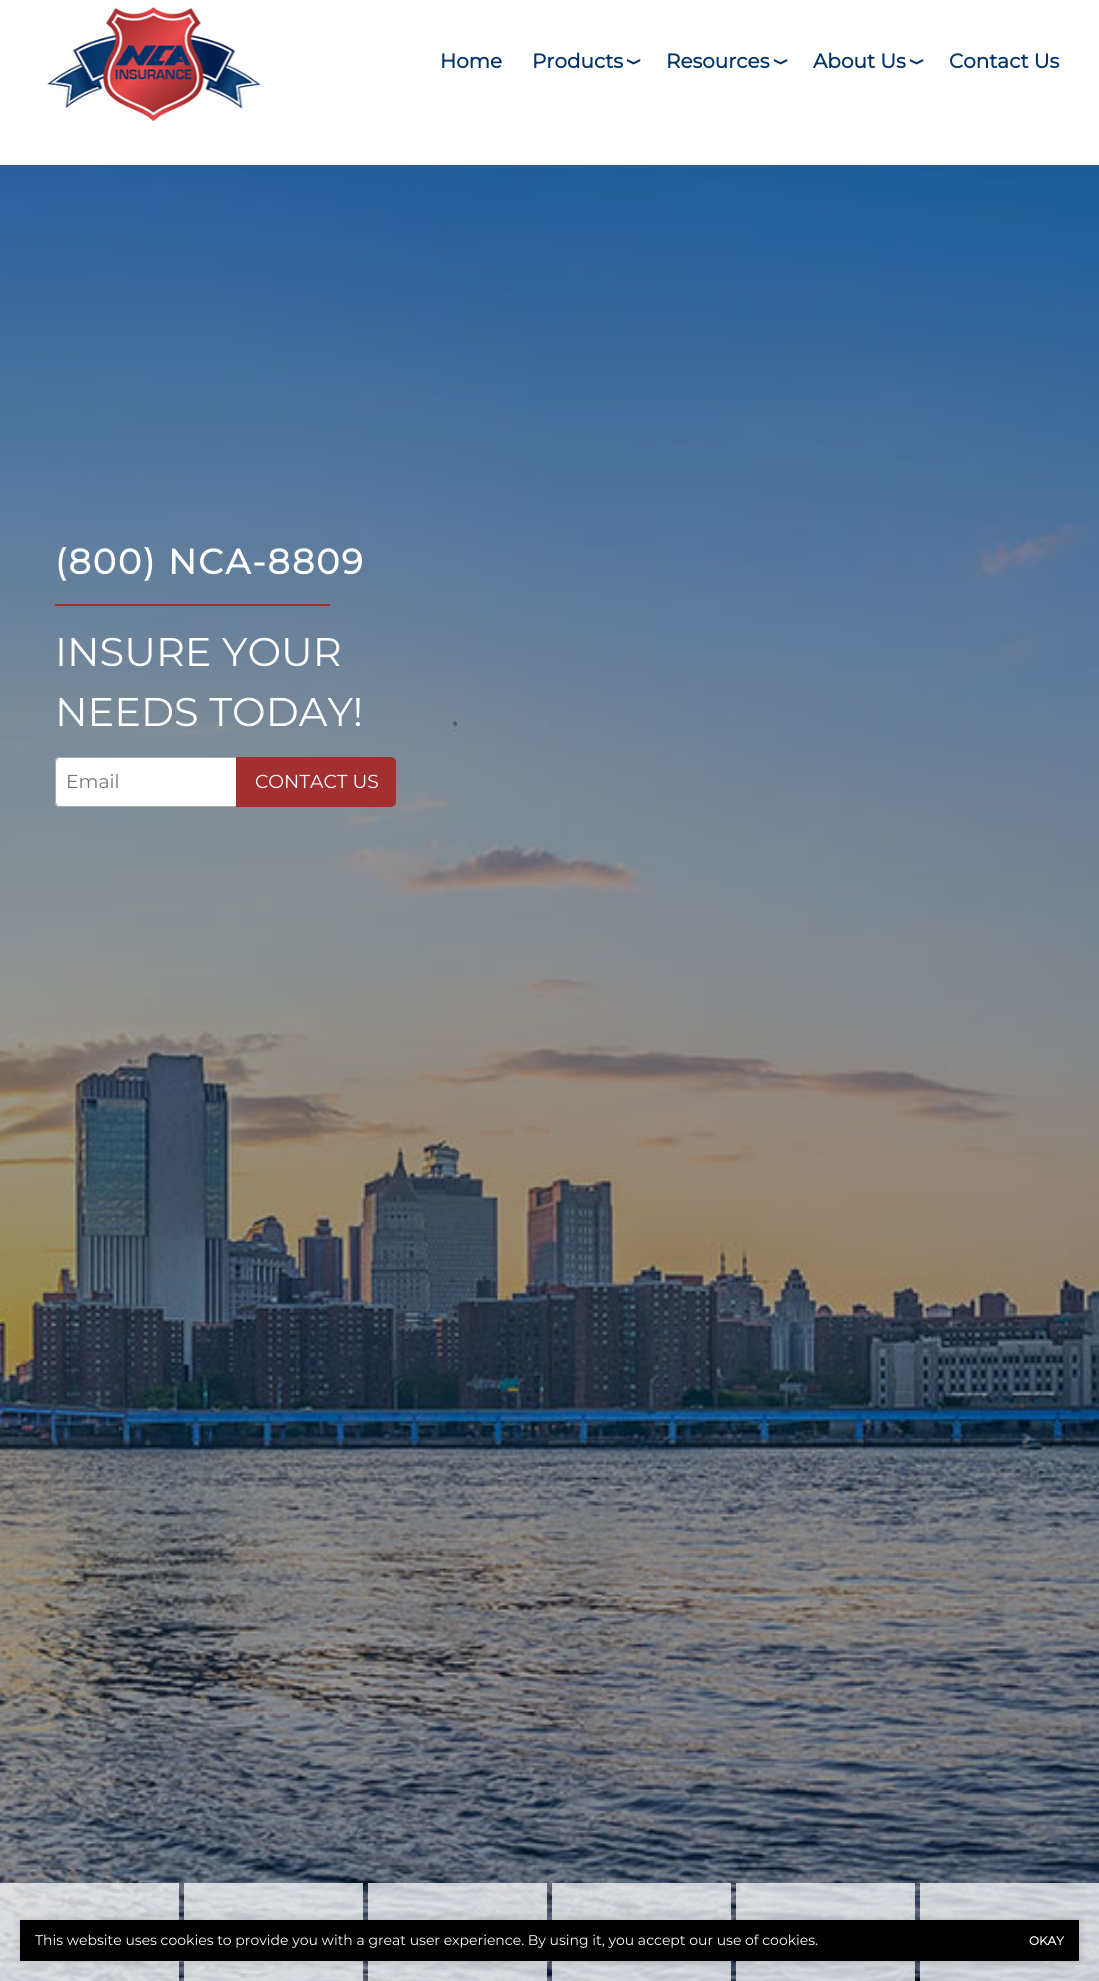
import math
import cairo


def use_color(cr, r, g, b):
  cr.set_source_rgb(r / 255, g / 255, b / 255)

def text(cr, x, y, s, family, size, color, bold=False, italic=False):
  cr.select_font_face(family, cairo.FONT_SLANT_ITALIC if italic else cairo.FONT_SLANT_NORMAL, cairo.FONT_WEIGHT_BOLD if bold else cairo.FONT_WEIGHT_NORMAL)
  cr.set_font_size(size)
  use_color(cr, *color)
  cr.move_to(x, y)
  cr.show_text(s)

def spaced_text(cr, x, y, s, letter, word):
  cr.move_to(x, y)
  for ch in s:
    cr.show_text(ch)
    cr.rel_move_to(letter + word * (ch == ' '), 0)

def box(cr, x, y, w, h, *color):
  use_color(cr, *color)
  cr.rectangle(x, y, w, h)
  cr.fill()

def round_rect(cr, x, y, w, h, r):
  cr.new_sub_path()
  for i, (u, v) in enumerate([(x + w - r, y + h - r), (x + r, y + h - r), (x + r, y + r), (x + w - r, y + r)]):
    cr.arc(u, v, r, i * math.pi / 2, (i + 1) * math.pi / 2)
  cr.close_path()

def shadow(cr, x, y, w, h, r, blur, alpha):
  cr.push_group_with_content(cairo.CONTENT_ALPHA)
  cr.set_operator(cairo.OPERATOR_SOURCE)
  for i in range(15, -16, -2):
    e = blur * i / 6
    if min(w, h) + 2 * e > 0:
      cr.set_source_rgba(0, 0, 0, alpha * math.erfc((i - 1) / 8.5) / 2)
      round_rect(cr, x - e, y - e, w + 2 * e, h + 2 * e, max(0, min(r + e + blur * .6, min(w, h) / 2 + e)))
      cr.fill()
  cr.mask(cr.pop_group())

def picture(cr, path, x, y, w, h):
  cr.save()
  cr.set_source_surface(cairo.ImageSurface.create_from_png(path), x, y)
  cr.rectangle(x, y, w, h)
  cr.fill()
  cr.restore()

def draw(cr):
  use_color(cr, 255, 255, 255)
  cr.paint()
  picture(cr, "img_01.png", 46, 5, 216, 117)
  picture(cr, "img_02.png", 0, 165, 1099, 1816)
  box(cr, 55, 604, 275, 2, 163, 47, 48)
  use_color(cr, 255, 255, 255)
  cr.new_path()
  cr.move_to(60, 757)
  cr.line_to(236, 757)
  cr.line_to(236, 807)
  cr.line_to(60, 807)
  cr.curve_to(57, 807, 55, 805, 55, 802)
  cr.line_to(55, 762)
  cr.curve_to(55, 759, 57, 757, 60, 757)
  cr.close_path()
  cr.fill()
  use_color(cr, 170, 170, 170)
  cr.set_fill_rule(cairo.FILL_RULE_EVEN_ODD)
  cr.new_path()
  cr.move_to(60, 757)
  cr.line_to(236, 757)
  cr.line_to(236, 807)
  cr.line_to(60, 807)
  cr.curve_to(57, 807, 55, 805, 55, 802)
  cr.line_to(55, 762)
  cr.curve_to(55, 759, 57, 757, 60, 757)
  cr.close_path()
  cr.move_to(60, 758)
  cr.line_to(236, 758)
  cr.line_to(236, 806)
  cr.line_to(60, 806)
  cr.curve_to(58, 806, 56, 804, 56, 802)
  cr.line_to(56, 762)
  cr.curve_to(56, 760, 58, 758, 60, 758)
  cr.close_path()
  cr.fill()
  use_color(cr, 163, 47, 48)
  cr.new_path()
  cr.move_to(236.5, 757.5)
  cr.line_to(391, 757.5)
  cr.curve_to(393.5, 757.5, 395.5, 759.5, 395.5, 762)
  cr.line_to(395.5, 802)
  cr.curve_to(395.5, 804.5, 393.5, 806.5, 391, 806.5)
  cr.line_to(236.5, 806.5)
  cr.close_path()
  cr.fill_preserve()
  cr.set_line_width(1)
  cr.stroke()
  cr.set_source_rgba(1, 1, 1, 0.75)
  cr.rectangle(0, 1883, 179, 98)
  cr.fill()
  cr.rectangle(184, 1883, 179, 98)
  cr.fill()
  cr.rectangle(368, 1883, 179, 98)
  cr.fill()
  cr.rectangle(552, 1883, 179, 98)
  cr.fill()
  cr.rectangle(736, 1883, 179, 98)
  cr.fill()
  cr.rectangle(920, 1883, 179, 98)
  cr.fill()
  use_color(cr, 0, 0, 0)
  shadow(cr, 20, 1920, 1059, 41, 0, 5, 0.15)
  box(cr, 20, 1920, 1059, 41, 0, 0, 0)
  text(cr, 440, 68, "Home", "Montserrat", 20, (0, 51, 106), bold=True)
  text(cr, 532, 68, "Products", "Montserrat", 20, (0, 51, 106), bold=True)
  cr.save()
  cr.translate(630, 56)
  cr.rotate(90 * math.pi / 180)
  text(cr, 0, 0, "❭", "DejaVu Sans", 13, (0, 51, 106), bold=True)
  cr.restore()
  text(cr, 666, 68, "Resources", "Montserrat", 20, (0, 51, 106), bold=True)
  cr.save()
  cr.translate(777, 56)
  cr.rotate(90 * math.pi / 180)
  text(cr, 0, 0, "❭", "DejaVu Sans", 13, (0, 51, 106), bold=True)
  cr.restore()
  text(cr, 813, 68, "About Us", "Montserrat", 20, (0, 51, 106), bold=True)
  cr.save()
  cr.translate(913, 56)
  cr.rotate(90 * math.pi / 180)
  text(cr, 0, 0, "❭", "DejaVu Sans", 13, (0, 51, 106), bold=True)
  cr.restore()
  text(cr, 949, 68, "Contact Us", "Montserrat", 20, (0, 51, 106), bold=True)
  cr.set_font_size(35)
  use_color(cr, 255, 255, 255)
  spaced_text(cr, 55, 574, "(800) NCA-8809", 2, 0)
  text(cr, 55, 666, "INSURE YOUR", "Montserrat Thin", 40, (255, 255, 255))
  text(cr, 55, 726, "NEEDS TODAY!", "Montserrat Thin", 40, (255, 255, 255))
  text(cr, 66, 788, "Email", "Montserrat Thin", 18.75, (117, 117, 117))
  text(cr, 255, 788, "CONTACT US", "Montserrat Thin", 18.75, (255, 255, 255))
  text(cr, 35, 1945, "This website uses cookies to provide you with a great user experience. By using it, you accept our use of cookies.", "Montserrat Thin", 14, (255, 255, 255))
  text(cr, 1029, 1945, "OKAY", "Montserrat", 12, (255, 255, 255), bold=True)


surface = cairo.ImageSurface(cairo.FORMAT_RGB24, 1099, 1981)
cr = cairo.Context(surface)
options = cairo.FontOptions()
options.set_hint_metrics(cairo.HINT_METRICS_OFF)
options.set_hint_style(cairo.HINT_STYLE_NONE)
cr.set_font_options(options)
cr.set_miter_limit(4)
draw(cr)
surface.write_to_png("out.png")
